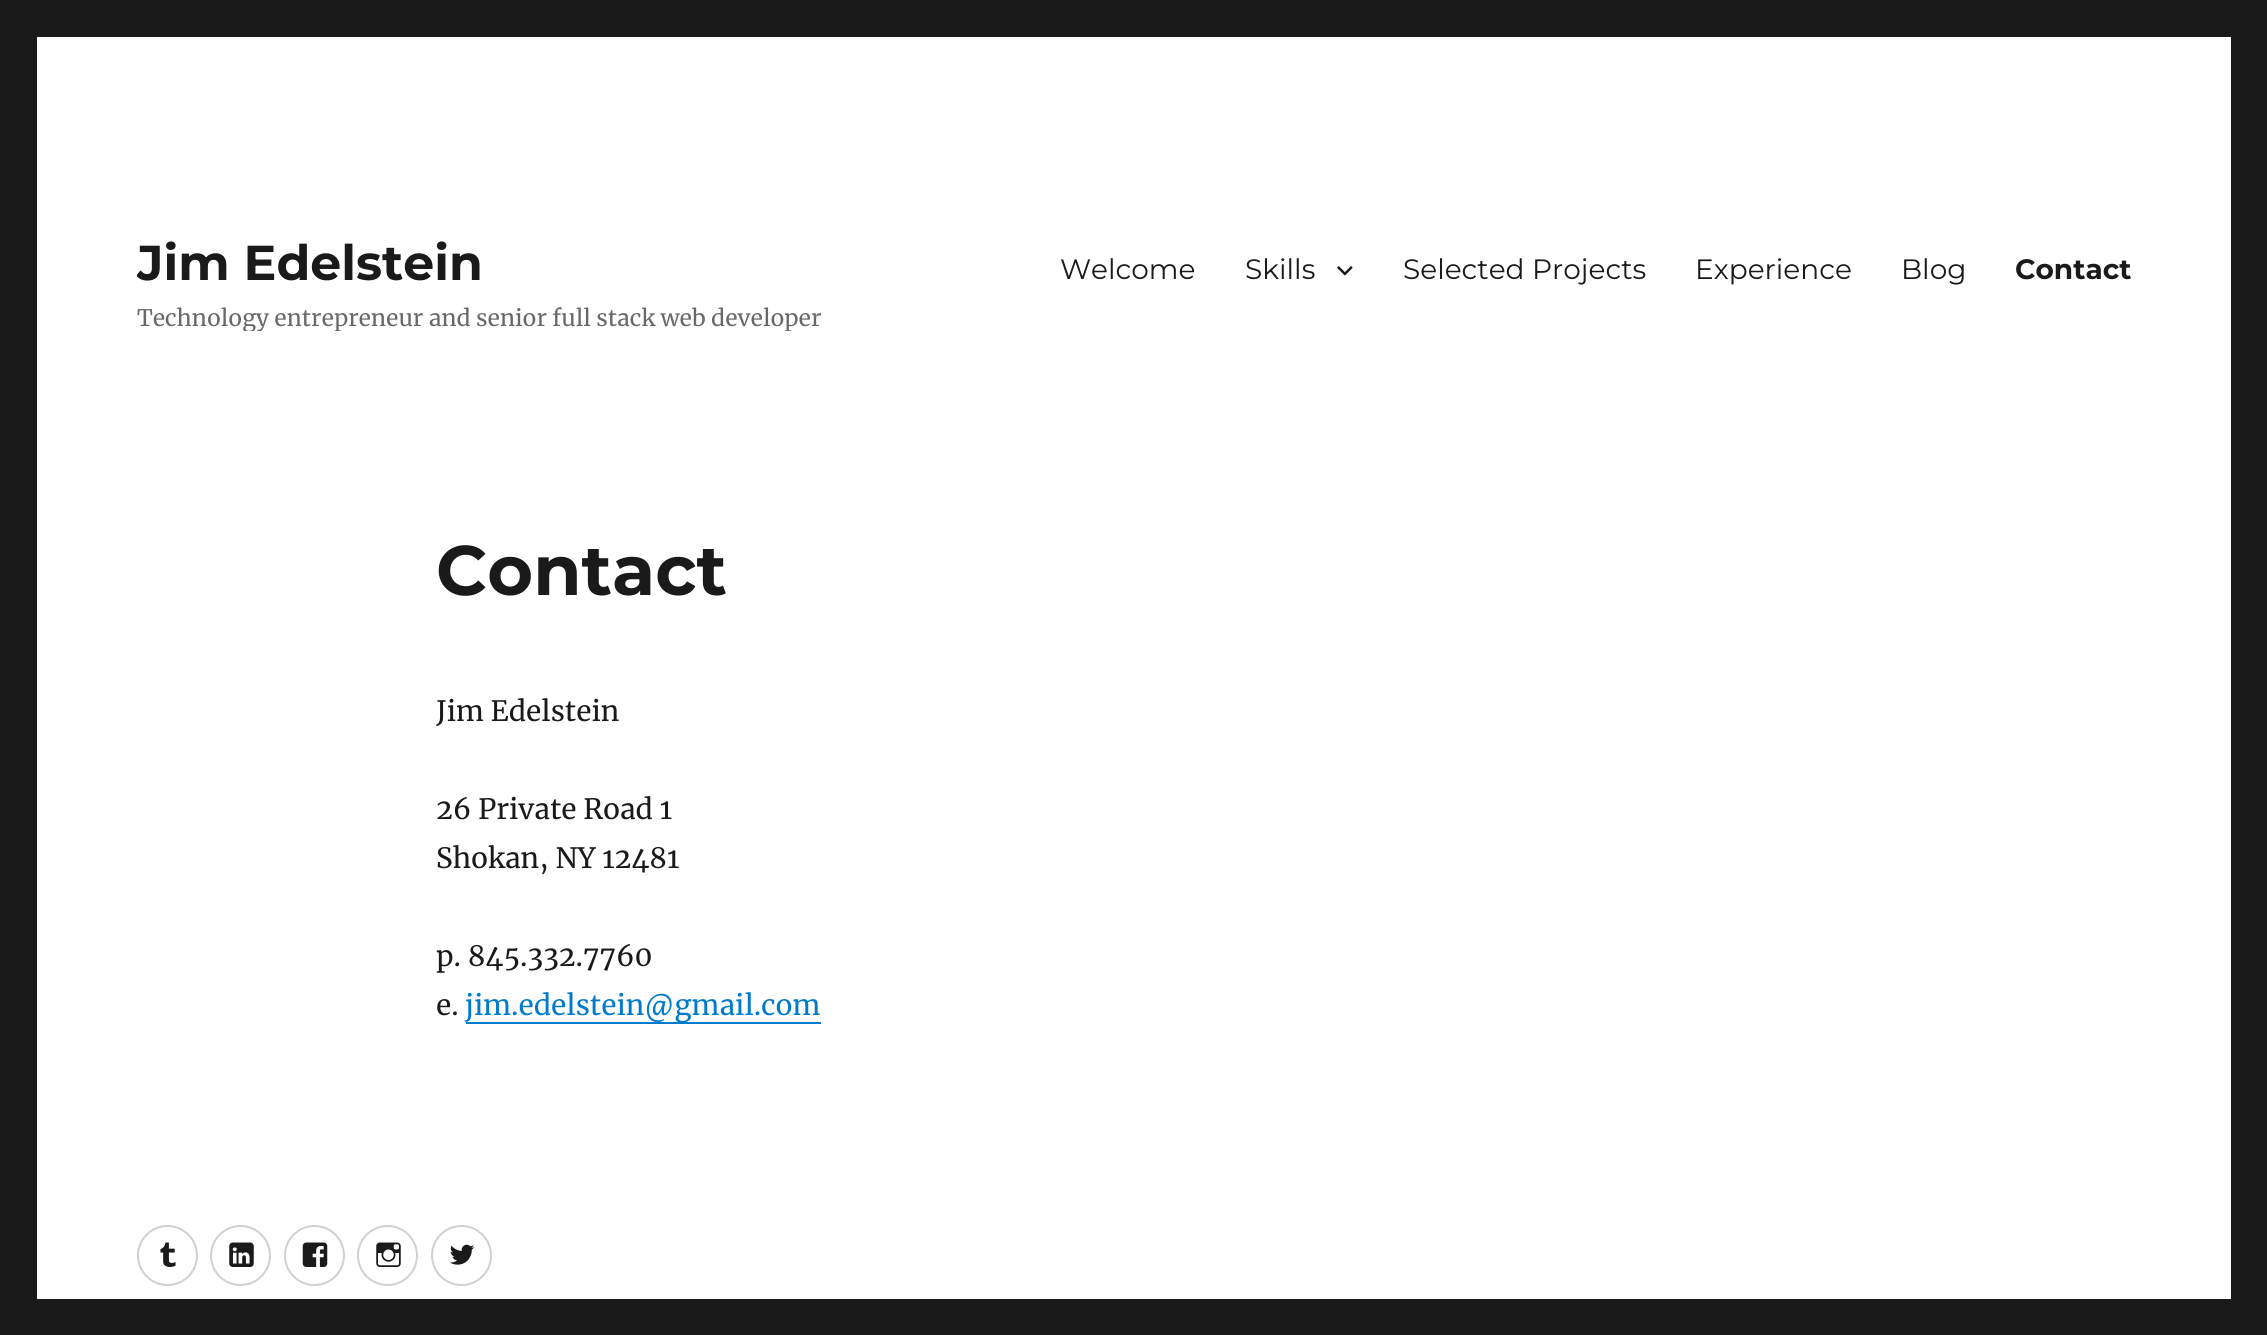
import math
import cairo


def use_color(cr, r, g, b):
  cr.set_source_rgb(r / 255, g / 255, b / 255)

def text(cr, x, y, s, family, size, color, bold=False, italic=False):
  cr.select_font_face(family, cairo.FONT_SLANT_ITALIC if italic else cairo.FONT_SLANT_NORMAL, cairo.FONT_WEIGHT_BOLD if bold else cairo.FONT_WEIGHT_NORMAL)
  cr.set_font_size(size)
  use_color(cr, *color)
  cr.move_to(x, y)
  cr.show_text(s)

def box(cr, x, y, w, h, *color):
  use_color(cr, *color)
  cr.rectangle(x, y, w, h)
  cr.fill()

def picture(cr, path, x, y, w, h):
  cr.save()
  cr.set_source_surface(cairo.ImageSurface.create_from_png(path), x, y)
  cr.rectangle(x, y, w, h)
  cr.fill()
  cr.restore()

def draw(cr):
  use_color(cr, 26, 26, 26)
  cr.paint()
  box(cr, 37, 37, 2194, 1262, 255, 255, 255)
  picture(cr, "img_01.png", 1337, 266, 16, 10)
  use_color(cr, 0, 122, 204)
  cr.new_path()
  cr.move_to(466, 1022)
  cr.line_to(466, 1024)
  cr.line_to(821, 1024)
  cr.line_to(821, 989)
  cr.line_to(821, 1022)
  cr.close_path()
  cr.fill()
  cr.arc(167.5, 1255.5, 29.5, 0, 2 * math.pi)
  use_color(cr, 209, 209, 209)
  cr.stroke()
  picture(cr, "img_02.png", 160, 1242, 16, 25)
  cr.arc(240.5, 1255.5, 29.5, 0, 2 * math.pi)
  cr.stroke()
  picture(cr, "img_03.png", 229, 1242, 25, 25)
  cr.arc(314.5, 1255.5, 29.5, 0, 2 * math.pi)
  cr.stroke()
  picture(cr, "img_04.png", 302, 1242, 26, 25)
  cr.arc(387.5, 1255.5, 29.5, 0, 2 * math.pi)
  cr.stroke()
  picture(cr, "img_05.png", 376, 1242, 25, 25)
  cr.arc(461.5, 1255.5, 29.5, 0, 2 * math.pi)
  cr.stroke()
  picture(cr, "img_06.png", 450, 1244, 25, 21)
  cr.save()
  cr.rectangle(137, 233, 684, 98)
  cr.clip()
  text(cr, 137, 280, "Jim Edelstein", "Montserrat Thin", 49, (26, 26, 26))
  text(cr, 137, 326, "Technology entrepreneur and senior full stack web developer", "Merriweather", 22.75, (104, 104, 104))
  cr.restore()
  text(cr, 1060, 279, "Welcome", "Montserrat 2 Thin", 28, (26, 26, 26))
  text(cr, 1245, 279, "Skills", "Montserrat 2 Thin", 28, (26, 26, 26))
  text(cr, 1403, 279, "Selected Projects", "Montserrat 2 Thin", 28, (26, 26, 26))
  text(cr, 1695, 279, "Experience", "Montserrat 2 Thin", 28, (26, 26, 26))
  text(cr, 1901, 279, "Blog", "Montserrat 2 Thin", 28, (26, 26, 26))
  text(cr, 2015, 279, "Contact", "Montserrat Thin", 28, (26, 26, 26))
  text(cr, 436, 595, "Contact", "Montserrat Thin", 70, (26, 26, 26))
  text(cr, 436, 721, "Jim Edelstein", "Merriweather", 28, (26, 26, 26))
  text(cr, 436, 819, "26 Private Road 1", "Merriweather", 28, (26, 26, 26))
  text(cr, 436, 868, "Shokan, NY 12481", "Merriweather", 28, (26, 26, 26))
  text(cr, 436, 966, "p. 845.332.7760", "Merriweather", 28, (26, 26, 26))
  text(cr, 436, 1015, "e.", "Merriweather", 28, (26, 26, 26))
  text(cr, 465, 1015, "jim.edelstein@gmail.com", "Merriweather", 28, (0, 122, 204))


surface = cairo.ImageSurface(cairo.FORMAT_RGB24, 2267, 1335)
cr = cairo.Context(surface)
options = cairo.FontOptions()
options.set_hint_metrics(cairo.HINT_METRICS_OFF)
options.set_hint_style(cairo.HINT_STYLE_NONE)
cr.set_font_options(options)
cr.set_miter_limit(4)
draw(cr)
surface.write_to_png("out.png")
